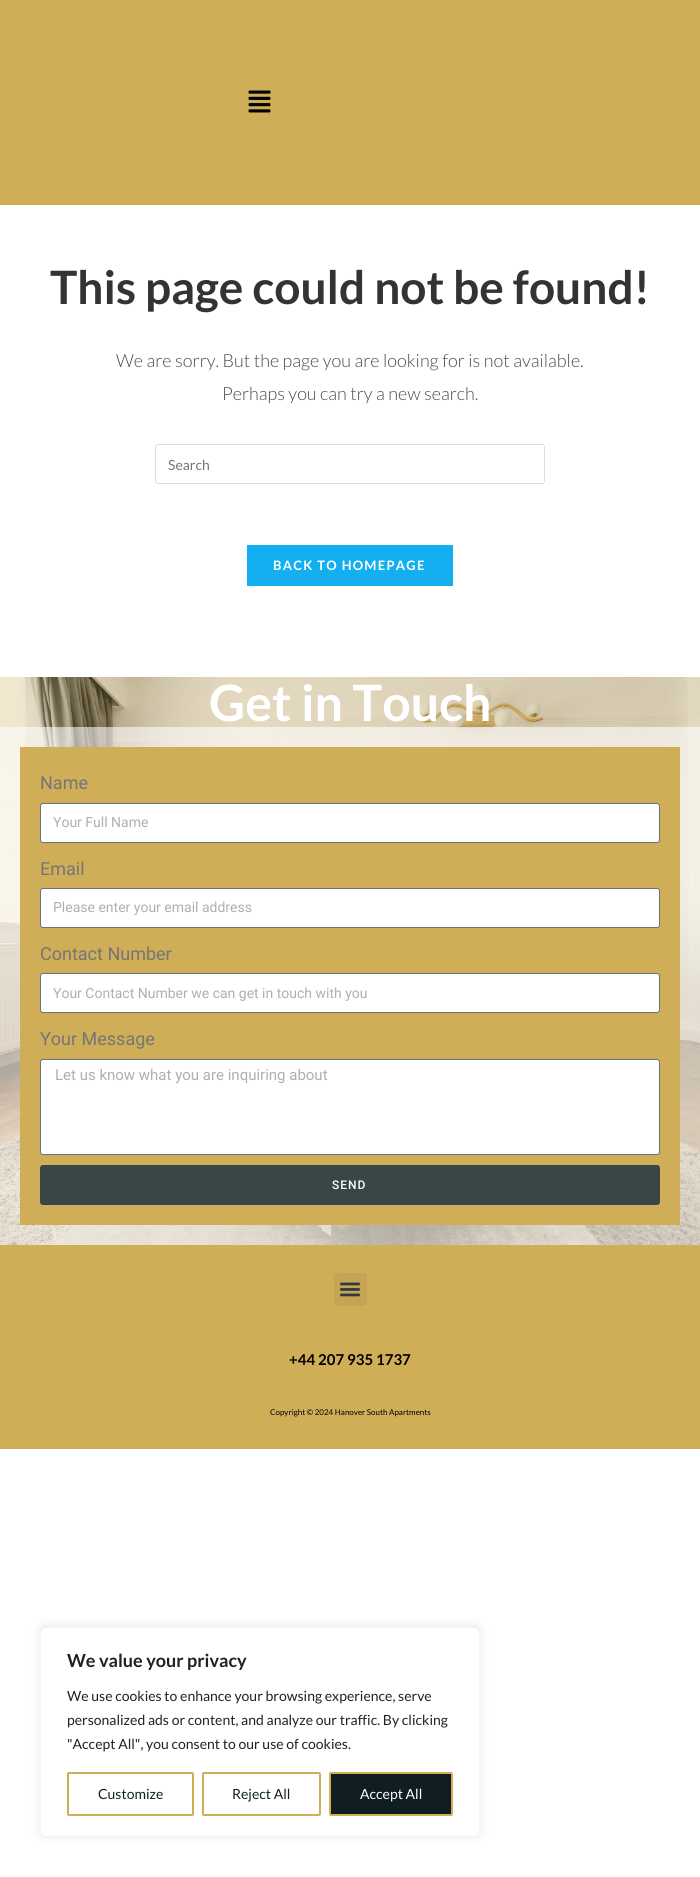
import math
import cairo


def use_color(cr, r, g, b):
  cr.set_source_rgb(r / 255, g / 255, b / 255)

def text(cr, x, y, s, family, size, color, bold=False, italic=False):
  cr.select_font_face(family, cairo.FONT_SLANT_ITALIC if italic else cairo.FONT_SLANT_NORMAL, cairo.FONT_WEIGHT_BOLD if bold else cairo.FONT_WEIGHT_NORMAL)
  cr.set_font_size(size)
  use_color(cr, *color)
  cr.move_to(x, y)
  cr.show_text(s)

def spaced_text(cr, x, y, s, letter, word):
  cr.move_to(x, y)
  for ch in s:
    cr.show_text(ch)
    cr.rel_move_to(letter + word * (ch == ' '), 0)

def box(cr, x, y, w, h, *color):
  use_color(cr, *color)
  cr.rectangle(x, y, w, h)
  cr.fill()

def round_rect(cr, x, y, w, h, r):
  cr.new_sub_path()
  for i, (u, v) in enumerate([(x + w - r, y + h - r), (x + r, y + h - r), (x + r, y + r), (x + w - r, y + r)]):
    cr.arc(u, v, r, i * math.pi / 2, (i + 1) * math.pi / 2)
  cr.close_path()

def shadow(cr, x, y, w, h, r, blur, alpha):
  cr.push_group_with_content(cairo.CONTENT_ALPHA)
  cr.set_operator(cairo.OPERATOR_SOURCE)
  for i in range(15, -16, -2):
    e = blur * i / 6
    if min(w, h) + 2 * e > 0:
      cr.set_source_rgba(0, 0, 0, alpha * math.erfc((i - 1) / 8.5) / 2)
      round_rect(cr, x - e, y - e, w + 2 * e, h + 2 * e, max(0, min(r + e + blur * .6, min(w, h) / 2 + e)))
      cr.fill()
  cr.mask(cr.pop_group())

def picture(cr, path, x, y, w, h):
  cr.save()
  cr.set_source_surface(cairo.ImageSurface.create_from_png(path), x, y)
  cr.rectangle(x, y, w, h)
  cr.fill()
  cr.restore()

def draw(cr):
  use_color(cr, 255, 255, 255)
  cr.paint()
  box(cr, 0, 0, 700, 205, 207, 174, 87)
  picture(cr, "img_01.png", 248, 90, 23, 23)
  round_rect(cr, 155.5, 444.5, 389, 39, 2.5)
  use_color(cr, 221, 221, 221)
  cr.set_line_width(1)
  cr.stroke()
  box(cr, 247, 545, 206, 41, 19, 175, 240)
  picture(cr, "img_02.png", 0, 677, 700, 568)
  box(cr, 20, 747, 660, 478, 207, 174, 87)
  use_color(cr, 255, 255, 255)
  round_rect(cr, 40.5, 803.5, 619, 39, 2.5)
  cr.fill_preserve()
  use_color(cr, 105, 114, 125)
  cr.stroke()
  use_color(cr, 255, 255, 255)
  round_rect(cr, 40.5, 888.5, 619, 39, 2.5)
  cr.fill_preserve()
  use_color(cr, 105, 114, 125)
  cr.stroke()
  use_color(cr, 255, 255, 255)
  round_rect(cr, 40.5, 973.5, 619, 39, 2.5)
  cr.fill_preserve()
  use_color(cr, 105, 114, 125)
  cr.stroke()
  use_color(cr, 255, 255, 255)
  round_rect(cr, 40.5, 1059.5, 619, 95, 2.5)
  cr.fill_preserve()
  use_color(cr, 105, 114, 125)
  cr.stroke()
  use_color(cr, 56, 70, 71)
  round_rect(cr, 40, 1165, 620, 40, 3)
  cr.fill()
  box(cr, 0, 1245, 700, 204, 207, 174, 87)
  use_color(cr, 197, 165, 83)
  round_rect(cr, 334, 1273, 33, 33, 3)
  cr.fill()
  picture(cr, "img_03.png", 339, 1282, 21, 15)
  use_color(cr, 172, 171, 171)
  shadow(cr, 40, 1626, 440, 210, 6, 5, 0.3)
  use_color(cr, 255, 255, 255)
  round_rect(cr, 40.5, 1627.5, 439, 209, 5.5)
  cr.fill_preserve()
  use_color(cr, 244, 244, 244)
  cr.stroke()
  round_rect(cr, 68, 1773, 125, 42, 1)
  use_color(cr, 207, 174, 87)
  cr.set_line_width(2)
  cr.stroke()
  round_rect(cr, 203, 1773, 117, 42, 1)
  cr.stroke()
  use_color(cr, 16, 30, 35)
  round_rect(cr, 330, 1773, 122, 42, 1)
  cr.fill_preserve()
  use_color(cr, 207, 174, 87)
  cr.stroke()
  text(cr, 50, 304, "This page could not be found!", "Lato", 46, (51, 51, 51), bold=True)
  text(cr, 116, 367, "We are sorry. But the page you are looking for is not available.", "Lato Light", 18, (74, 74, 74))
  text(cr, 222, 400, "Perhaps you can try a new search.", "Lato Light", 18, (74, 74, 74))
  text(cr, 168, 470, "Search", "Lato", 14, (117, 117, 117))
  cr.select_font_face("Lato", cairo.FONT_SLANT_NORMAL, cairo.FONT_WEIGHT_BOLD)
  cr.set_font_size(13)
  use_color(cr, 255, 255, 255)
  spaced_text(cr, 273, 570, "BACK TO HOMEPAGE", 1.25, 0)
  text(cr, 209, 721, "Get in Touch", "Lato", 50, (255, 255, 255), bold=True)
  text(cr, 40, 789, "Name", "Roboto", 18, (117, 117, 117))
  text(cr, 53, 827, "Your Full Name", "Roboto", 14, (175, 175, 175))
  text(cr, 40, 875, "Email", "Roboto", 18, (117, 117, 117))
  text(cr, 53, 912, "Please enter your email address", "Roboto", 14, (175, 175, 175))
  text(cr, 40, 960, "Contact Number", "Roboto", 18, (117, 117, 117))
  text(cr, 53, 998, "Your Contact Number we can get in touch with you", "Roboto", 14, (175, 175, 175))
  text(cr, 40, 1045, "Your Message", "Roboto", 18, (117, 117, 117))
  text(cr, 55, 1080, "Let us know what you are inquiring about", "Roboto", 15, (175, 175, 175))
  cr.select_font_face("Roboto Medium")
  cr.set_font_size(12)
  use_color(cr, 255, 255, 255)
  spaced_text(cr, 332, 1189, "SEND", 1, 0)
  text(cr, 289, 1365, "+44 207 935 1737", "Lato", 15, (0, 0, 0), bold=True)
  text(cr, 270, 1415, "Copyright © 2024 Hanover South Apartments", "Lato", 8, (0, 0, 0))
  text(cr, 67, 1667, "We value your privacy", "Lato", 18, (33, 33, 33), bold=True)
  text(cr, 67, 1701, "We use cookies to enhance your browsing experience, serve", "Lato", 14, (33, 33, 33))
  text(cr, 67, 1725, "personalized ads or content, and analyze our traffic. By clicking", "Lato", 14, (33, 33, 33))
  text(cr, 67, 1749, "\"Accept All\", you consent to our use of cookies.", "Lato", 14, (33, 33, 33))
  text(cr, 98, 1799, "Customize", "Lato", 14, (17, 32, 36))
  text(cr, 232, 1799, "Reject All", "Lato", 14, (17, 32, 36))
  text(cr, 360, 1799, "Accept All", "Lato", 14, (255, 255, 255))


surface = cairo.ImageSurface(cairo.FORMAT_RGB24, 700, 1877)
cr = cairo.Context(surface)
options = cairo.FontOptions()
options.set_hint_metrics(cairo.HINT_METRICS_OFF)
options.set_hint_style(cairo.HINT_STYLE_NONE)
cr.set_font_options(options)
cr.set_miter_limit(4)
draw(cr)
surface.write_to_png("out.png")
